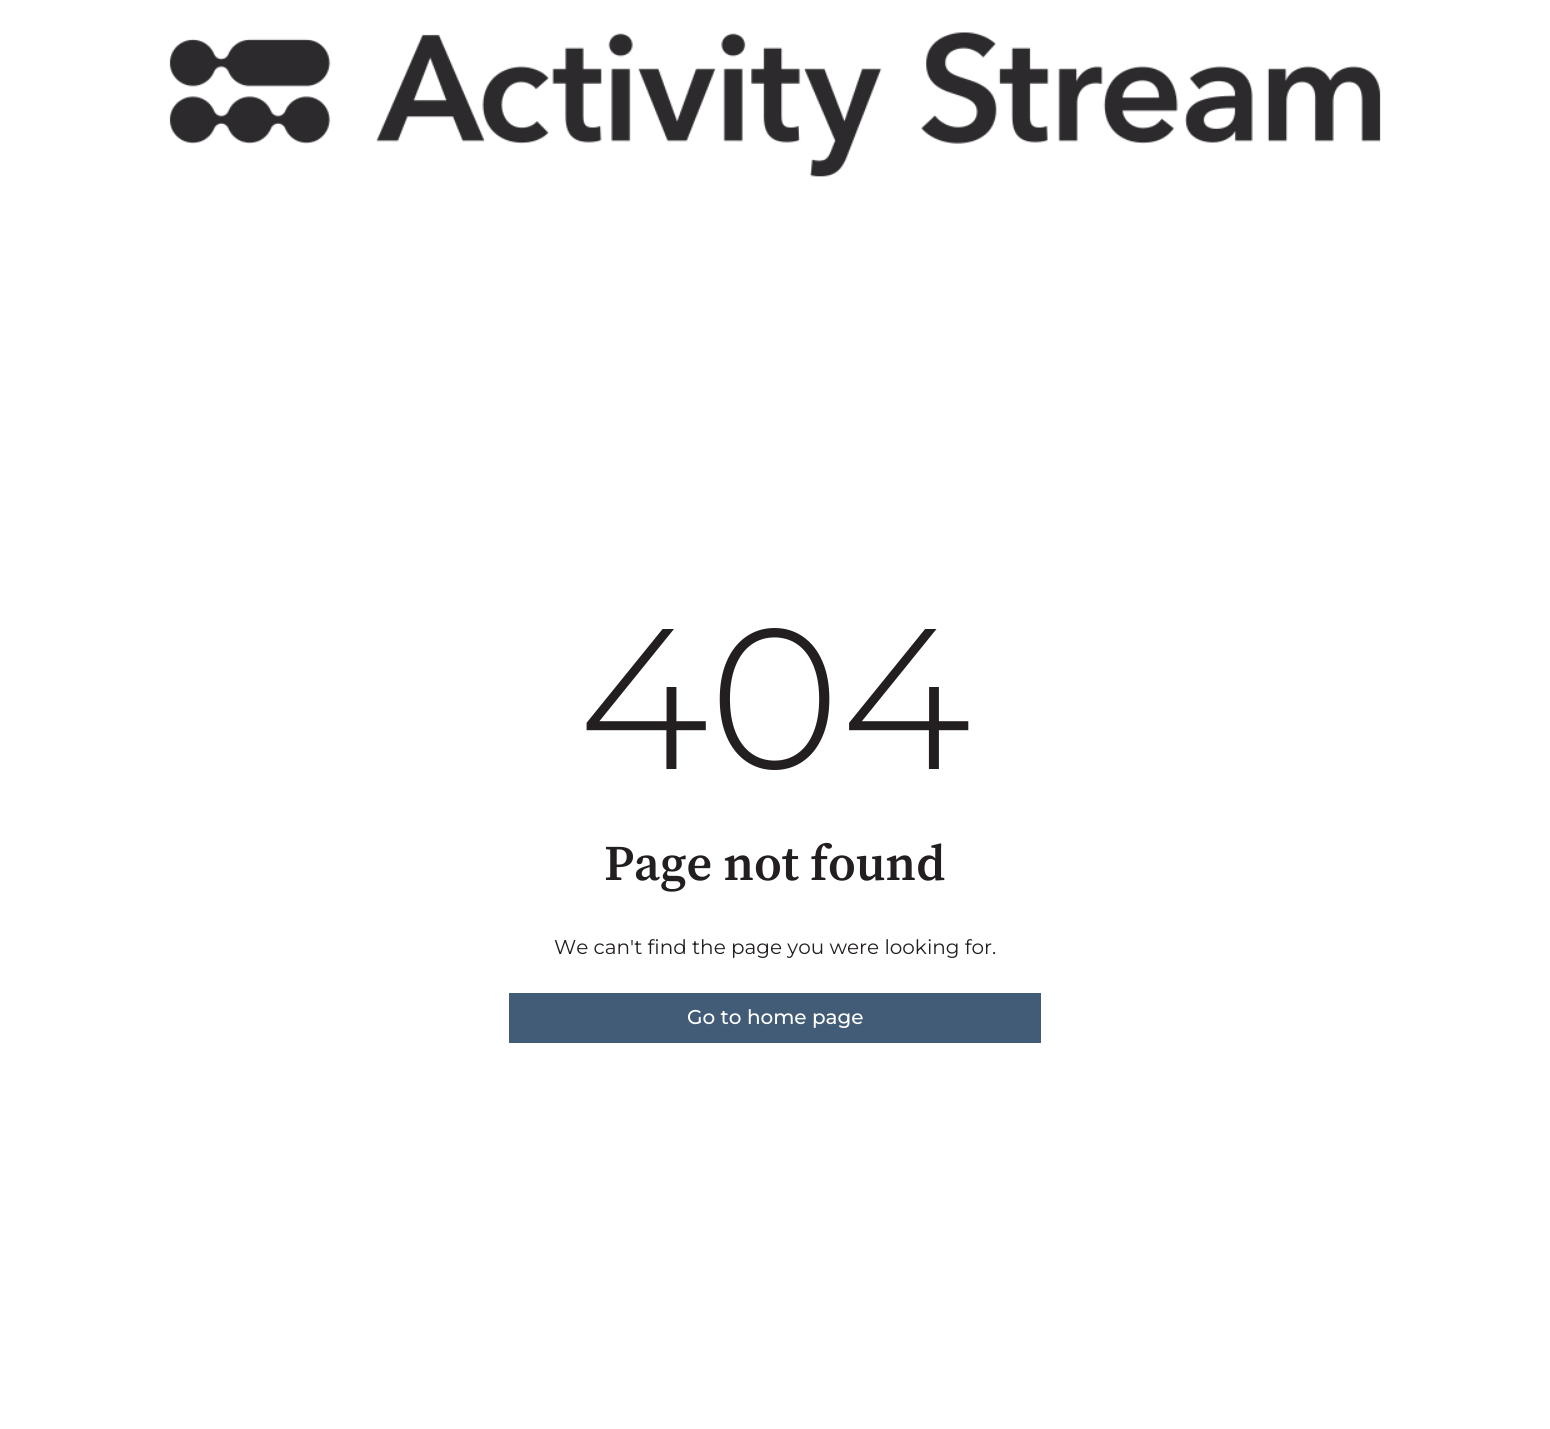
import math
import cairo


def use_color(cr, r, g, b):
  cr.set_source_rgb(r / 255, g / 255, b / 255)

def text(cr, x, y, s, family, size, color, bold=False, italic=False):
  cr.select_font_face(family, cairo.FONT_SLANT_ITALIC if italic else cairo.FONT_SLANT_NORMAL, cairo.FONT_WEIGHT_BOLD if bold else cairo.FONT_WEIGHT_NORMAL)
  cr.set_font_size(size)
  use_color(cr, *color)
  cr.move_to(x, y)
  cr.show_text(s)

def box(cr, x, y, w, h, *color):
  use_color(cr, *color)
  cr.rectangle(x, y, w, h)
  cr.fill()

def picture(cr, path, x, y, w, h):
  cr.save()
  cr.set_source_surface(cairo.ImageSurface.create_from_png(path), x, y)
  cr.rectangle(x, y, w, h)
  cr.fill()
  cr.restore()

def draw(cr):
  use_color(cr, 255, 255, 255)
  cr.paint()
  picture(cr, "img_01.png", 169, 32, 1212, 145)
  box(cr, 509, 993, 532, 50, 66, 91, 118)
  text(cr, 578, 769, "404", "Montserrat Light", 200, (35, 31, 32))
  text(cr, 604, 880, "Page not found", "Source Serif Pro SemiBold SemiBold", 50, (35, 31, 32))
  text(cr, 554, 954, "We can't find the page you were looking for.", "Montserrat", 20, (35, 31, 32))
  text(cr, 687, 1024, "Go to home page", "Montserrat Medium", 20, (255, 255, 255))


surface = cairo.ImageSurface(cairo.FORMAT_RGB24, 1550, 1429)
cr = cairo.Context(surface)
options = cairo.FontOptions()
options.set_hint_metrics(cairo.HINT_METRICS_OFF)
options.set_hint_style(cairo.HINT_STYLE_NONE)
cr.set_font_options(options)
cr.set_miter_limit(4)
draw(cr)
surface.write_to_png("out.png")
